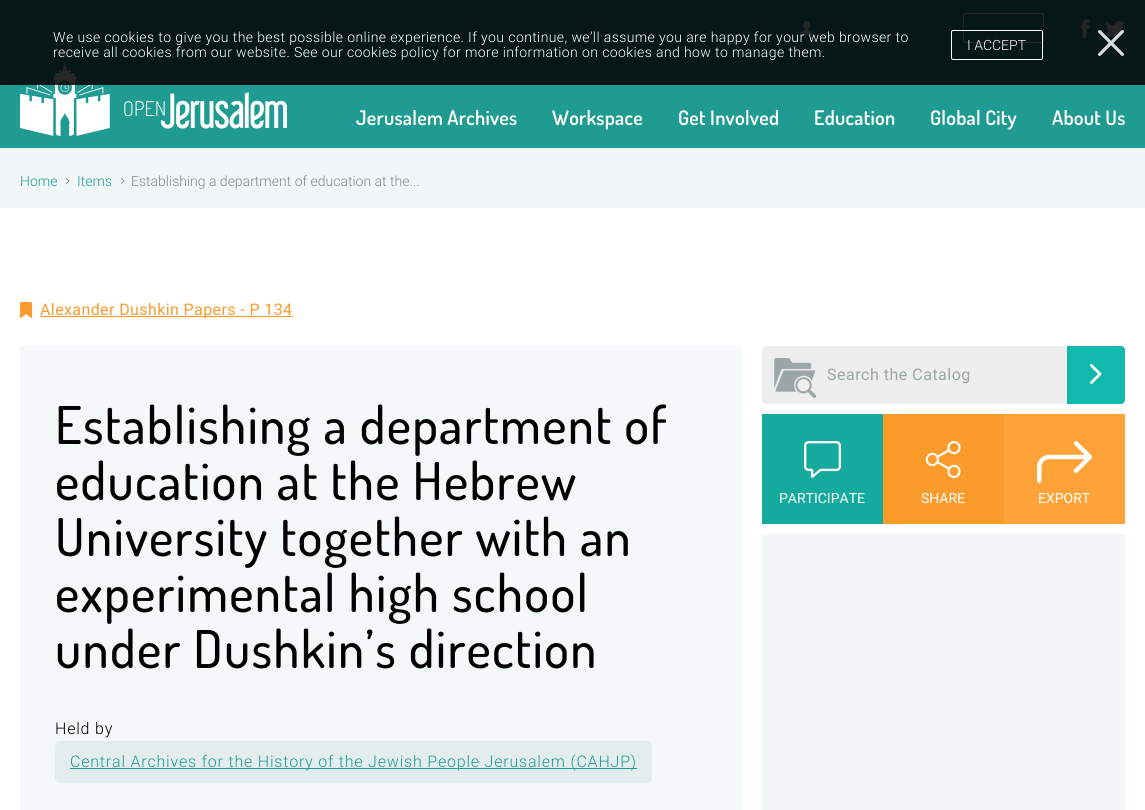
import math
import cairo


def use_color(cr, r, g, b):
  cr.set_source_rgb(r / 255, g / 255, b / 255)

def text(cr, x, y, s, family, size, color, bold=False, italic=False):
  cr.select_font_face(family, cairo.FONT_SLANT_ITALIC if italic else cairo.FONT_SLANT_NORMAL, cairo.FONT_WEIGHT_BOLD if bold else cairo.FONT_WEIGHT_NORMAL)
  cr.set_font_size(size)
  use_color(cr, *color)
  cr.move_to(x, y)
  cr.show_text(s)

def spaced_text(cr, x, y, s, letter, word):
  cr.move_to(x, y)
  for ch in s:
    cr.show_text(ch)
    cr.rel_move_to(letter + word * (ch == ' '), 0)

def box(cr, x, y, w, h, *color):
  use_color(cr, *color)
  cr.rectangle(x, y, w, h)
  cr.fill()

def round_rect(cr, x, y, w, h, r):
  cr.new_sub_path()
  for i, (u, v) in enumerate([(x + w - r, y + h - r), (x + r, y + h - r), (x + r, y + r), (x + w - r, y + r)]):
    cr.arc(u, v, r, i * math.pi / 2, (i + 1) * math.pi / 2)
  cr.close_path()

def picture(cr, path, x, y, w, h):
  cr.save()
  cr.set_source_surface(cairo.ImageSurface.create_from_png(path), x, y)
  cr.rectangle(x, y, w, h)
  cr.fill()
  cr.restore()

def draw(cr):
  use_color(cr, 255, 255, 255)
  cr.paint()
  box(cr, 0, 0, 1145, 148, 31, 155, 145)
  picture(cr, "img_02.png", 800, 21, 13, 14)
  round_rect(cr, 963.5, 13.5, 80, 29, 1.5)
  use_color(cr, 255, 255, 255)
  cr.set_line_width(1)
  cr.stroke()
  picture(cr, "img_03.png", 1080, 19, 10, 20)
  picture(cr, "img_04.png", 1105, 21, 20, 16)
  picture(cr, "img_05.png", 20, 62, 267, 74)
  cr.set_source_rgba(0, 0, 0, 0.85)
  cr.rectangle(0, 0, 1145, 85)
  cr.fill()
  round_rect(cr, 951.5, 30.5, 91, 29, 1.5)
  use_color(cr, 255, 255, 255)
  cr.stroke()
  picture(cr, "img_01.png", 1098, 30, 26, 26)
  box(cr, 0, 148, 1145, 60, 241, 246, 246)
  picture(cr, "img_06.png", 66, 178, 4, 6)
  picture(cr, "img_06.png", 121, 178, 4, 6)
  picture(cr, "img_07.png", 20, 302, 13, 16)
  box(cr, 40, 316, 253, 1, 251, 155, 44)
  box(cr, 20, 346, 722, 464, 245, 248, 248)
  use_color(cr, 228, 237, 237)
  round_rect(cr, 55, 741, 597, 42, 5)
  cr.fill()
  box(cr, 70, 768, 567, 1, 31, 155, 145)
  use_color(cr, 238, 238, 238)
  cr.new_path()
  cr.move_to(766, 346)
  cr.line_to(1067, 346)
  cr.line_to(1067, 404)
  cr.line_to(766, 404)
  cr.curve_to(764, 404, 762, 402, 762, 400)
  cr.line_to(762, 350)
  cr.curve_to(762, 348, 764, 346, 766, 346)
  cr.close_path()
  cr.fill()
  picture(cr, "img_08.png", 774, 358, 43, 40)
  use_color(cr, 16, 185, 171)
  cr.new_path()
  cr.move_to(1067, 346)
  cr.line_to(1121, 346)
  cr.curve_to(1123, 346, 1125, 348, 1125, 350)
  cr.line_to(1125, 400)
  cr.curve_to(1125, 402, 1123, 404, 1121, 404)
  cr.line_to(1067, 404)
  cr.close_path()
  cr.fill()
  picture(cr, "img_09.png", 1090, 364, 12, 20)
  box(cr, 762, 414, 121, 110, 21, 170, 158)
  picture(cr, "img_10.png", 804, 441, 37, 37)
  box(cr, 883, 414, 121, 110, 251, 155, 44)
  picture(cr, "img_11.png", 925, 441, 36, 37)
  box(cr, 1004, 414, 121, 110, 255, 163, 56)
  picture(cr, "img_12.png", 1037, 441, 56, 42)
  box(cr, 762, 534, 363, 276, 242, 246, 246)
  cr.select_font_face("Roboto Light")
  cr.set_font_size(14)
  use_color(cr, 255, 255, 255)
  spaced_text(cr, 53, 42, "We use cookies to give you the best possible online experience. If you continue, we’ll assume you are happy for your web browser to", 0.4, 0)
  spaced_text(cr, 53, 57, "receive all cookies from our website. See our cookies policy for more information on cookies and how to manage them.", 0.4, 0)
  text(cr, 967, 50, "I ACCEPT", "Roboto Light", 14, (255, 255, 255))
  cr.select_font_face("Dosis SemiBold")
  cr.set_font_size(20)
  spaced_text(cr, 356, 125, "Jerusalem Archives", 0.25, 0)
  spaced_text(cr, 552, 125, "Workspace", 0.25, 0)
  spaced_text(cr, 678, 125, "Get Involved", 0.25, 0)
  spaced_text(cr, 814, 125, "Education", 0.25, 0)
  spaced_text(cr, 930, 125, "Global City", 0.25, 0)
  spaced_text(cr, 1052, 125, "About Us", 0.25, 0)
  text(cr, 20, 186, "Home", "Roboto Light", 14, (31, 155, 145))
  text(cr, 77, 186, "Items", "Roboto Light", 14, (31, 155, 145))
  text(cr, 131, 186, "Establishing a department of education at the...", "Roboto Light", 14, (128, 138, 138))
  cr.select_font_face("Roboto")
  cr.set_font_size(16)
  use_color(cr, 251, 155, 44)
  spaced_text(cr, 40, 315, "Alexander Dushkin Papers - P 134", 0.4, 0)
  cr.select_font_face("Dosis Medium")
  cr.set_font_size(52)
  use_color(cr, 0, 0, 0)
  spaced_text(cr, 55, 444, "Establishing a department of", 1.3, 0)
  spaced_text(cr, 55, 500, "education at the Hebrew", 1.3, 0)
  spaced_text(cr, 55, 556, "University together with an", 1.3, 0)
  spaced_text(cr, 55, 612, "experimental high school", 1.3, 0)
  spaced_text(cr, 55, 668, "under Dushkin’s direction", 1.3, 0)
  cr.select_font_face("Roboto Light")
  cr.set_font_size(16)
  spaced_text(cr, 55, 734, "Held by", 0.8, 0)
  use_color(cr, 31, 155, 145)
  spaced_text(cr, 70, 767, "Central Archives for the History of the Jewish People Jerusalem (CAHJP)", 0.8, 0)
  cr.select_font_face("Roboto")
  use_color(cr, 156, 166, 166)
  spaced_text(cr, 827, 380, "Search the Catalog", 0.5, 0)
  text(cr, 779, 503, "PARTICIPATE", "Roboto", 14, (255, 255, 255))
  text(cr, 921, 503, "SHARE", "Roboto", 14, (255, 255, 255))
  text(cr, 1038, 503, "EXPORT", "Roboto", 14, (255, 255, 255))


surface = cairo.ImageSurface(cairo.FORMAT_RGB24, 1145, 810)
cr = cairo.Context(surface)
options = cairo.FontOptions()
options.set_hint_metrics(cairo.HINT_METRICS_OFF)
options.set_hint_style(cairo.HINT_STYLE_NONE)
cr.set_font_options(options)
cr.set_miter_limit(4)
draw(cr)
surface.write_to_png("out.png")
